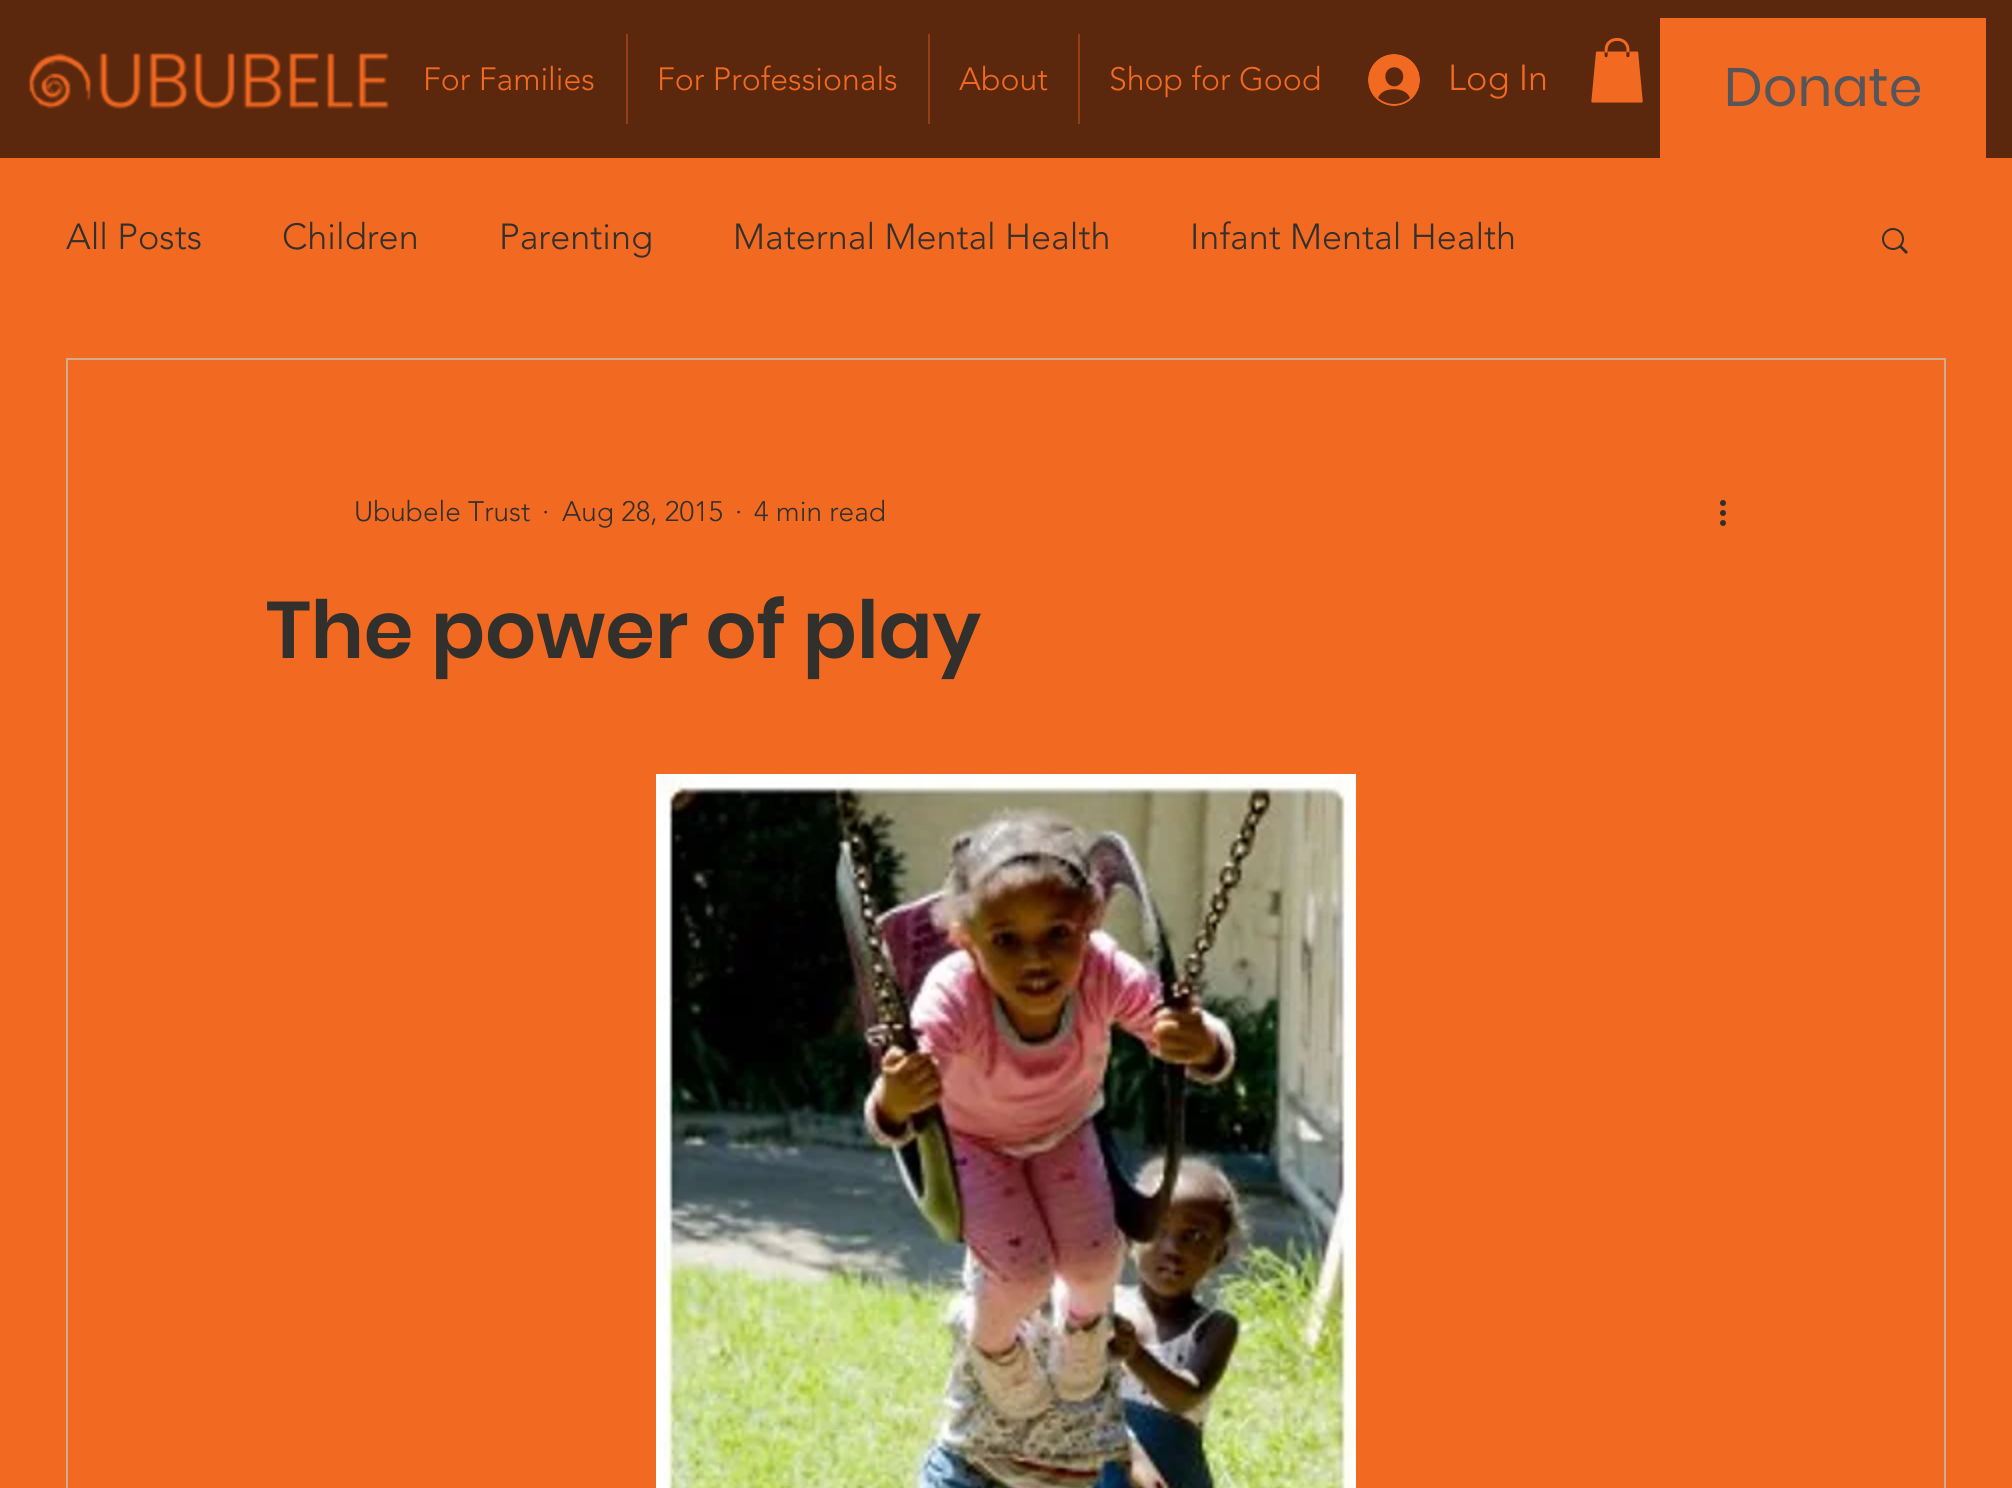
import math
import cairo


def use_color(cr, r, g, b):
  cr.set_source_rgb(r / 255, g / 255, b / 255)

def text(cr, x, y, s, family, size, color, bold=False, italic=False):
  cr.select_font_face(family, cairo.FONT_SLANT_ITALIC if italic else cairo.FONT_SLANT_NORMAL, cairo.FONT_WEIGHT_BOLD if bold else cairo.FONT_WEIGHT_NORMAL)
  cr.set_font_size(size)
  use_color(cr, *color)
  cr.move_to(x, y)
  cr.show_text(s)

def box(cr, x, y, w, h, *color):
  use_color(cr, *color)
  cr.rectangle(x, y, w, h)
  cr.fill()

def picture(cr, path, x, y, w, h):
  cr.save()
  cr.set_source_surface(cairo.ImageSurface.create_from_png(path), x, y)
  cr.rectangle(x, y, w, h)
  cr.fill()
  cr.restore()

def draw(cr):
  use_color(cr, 242, 105, 33)
  cr.paint()
  box(cr, 0, 0, 2012, 158, 92, 40, 13)
  picture(cr, "img_01.png", 28, 52, 361, 57)
  box(cr, 626, 34, 2, 90, 148, 64, 20)
  box(cr, 928, 34, 2, 90, 148, 64, 20)
  box(cr, 1078, 34, 2, 90, 148, 64, 20)
  picture(cr, "img_02.png", 1368, 54, 52, 52)
  picture(cr, "img_03.png", 1591, 38, 52, 65)
  box(cr, 1660, 18, 326, 140, 242, 105, 33)
  picture(cr, "img_04.png", 1882, 228, 26, 26)
  cr.rectangle(67, 359, 1878, 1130)
  use_color(cr, 206, 172, 140)
  cr.stroke()
  picture(cr, "img_05.png", 1720, 500, 6, 26)
  picture(cr, "img_06.png", 656, 774, 700, 714)
  text(cr, 423, 90, "For Families", "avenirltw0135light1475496 Light", 32, (242, 105, 33))
  text(cr, 657, 90, "For Professionals", "avenirltw0135light1475496 Light", 32, (242, 105, 33))
  text(cr, 959, 90, "About", "avenirltw0135light1475496 Light", 32, (242, 105, 33))
  text(cr, 1109, 90, "Shop for Good", "avenirltw0135light1475496 Light", 32, (242, 105, 33))
  text(cr, 1448, 90, "Log In", "avenirltw0135light1475496 Light", 36, (242, 105, 33))
  text(cr, 1724, 106, "Donate", "Poppins", 54, (86, 85, 89))
  text(cr, 66, 249, "All Posts", "avenirltw0135light1475496 Light", 36, (49, 48, 44))
  text(cr, 282, 249, "Children", "avenirltw0135light1475496 Light", 36, (49, 48, 44))
  text(cr, 499, 249, "Parenting", "avenirltw0135light1475496 Light", 36, (49, 48, 44))
  text(cr, 733, 249, "Maternal Mental Health", "avenirltw0135light1475496 Light", 36, (49, 48, 44))
  text(cr, 1190, 249, "Infant Mental Health", "avenirltw0135light1475496 Light", 36, (49, 48, 44))
  text(cr, 354, 521, "Ububele Trust", "avenirltw0135light1475496 Light", 28, (49, 48, 44))
  text(cr, 542, 521, "·", "avenirltw0135light1475496 Light", 28, (49, 48, 44))
  text(cr, 562, 521, "Aug 28, 2015", "avenirltw0135light1475496 Light", 28, (49, 48, 44))
  text(cr, 735, 521, "·", "avenirltw0135light1475496 Light", 28, (49, 48, 44))
  text(cr, 754, 521, "4 min read", "avenirltw0135light1475496 Light", 28, (49, 48, 44))
  text(cr, 266, 658, "The power of play", "Poppins SemiBold", 80, (49, 48, 44))


surface = cairo.ImageSurface(cairo.FORMAT_RGB24, 2012, 1488)
cr = cairo.Context(surface)
options = cairo.FontOptions()
options.set_hint_metrics(cairo.HINT_METRICS_OFF)
options.set_hint_style(cairo.HINT_STYLE_NONE)
cr.set_font_options(options)
cr.set_miter_limit(4)
draw(cr)
surface.write_to_png("out.png")
